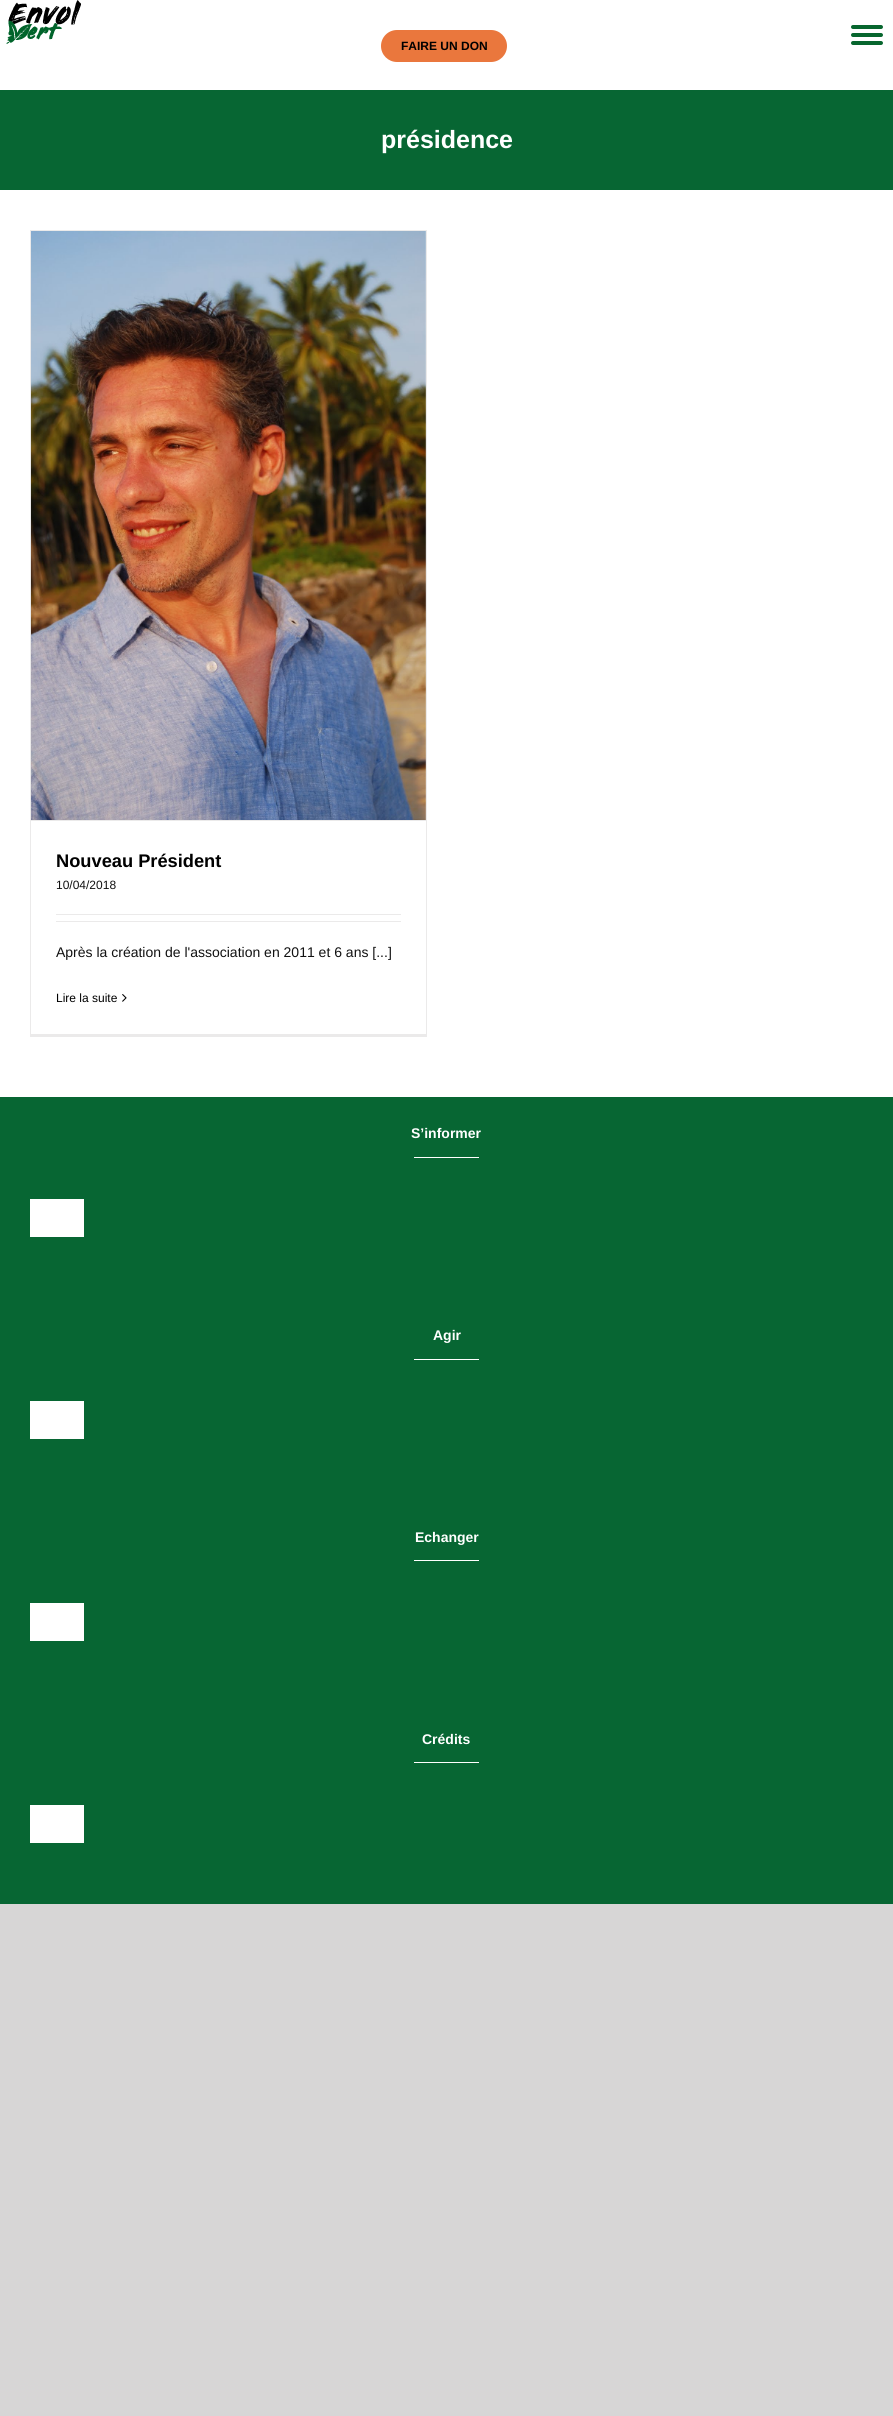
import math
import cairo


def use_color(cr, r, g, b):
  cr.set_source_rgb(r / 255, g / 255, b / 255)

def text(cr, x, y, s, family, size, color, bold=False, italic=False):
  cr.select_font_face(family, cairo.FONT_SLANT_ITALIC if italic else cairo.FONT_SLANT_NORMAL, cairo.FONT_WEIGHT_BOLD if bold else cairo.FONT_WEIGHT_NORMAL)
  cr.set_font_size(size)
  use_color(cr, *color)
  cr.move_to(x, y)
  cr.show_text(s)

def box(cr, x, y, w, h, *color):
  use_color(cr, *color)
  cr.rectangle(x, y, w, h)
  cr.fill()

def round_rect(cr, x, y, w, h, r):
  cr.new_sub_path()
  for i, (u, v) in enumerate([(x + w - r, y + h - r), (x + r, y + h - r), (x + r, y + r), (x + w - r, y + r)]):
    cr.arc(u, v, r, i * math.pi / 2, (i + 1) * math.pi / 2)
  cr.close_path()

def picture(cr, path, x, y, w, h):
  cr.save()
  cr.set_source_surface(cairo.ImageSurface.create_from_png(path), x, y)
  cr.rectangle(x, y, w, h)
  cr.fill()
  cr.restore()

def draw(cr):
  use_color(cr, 215, 214, 214)
  cr.paint()
  box(cr, 0, 0, 893, 1097, 255, 255, 255)
  picture(cr, "img_01.png", 6, 0, 75, 44)
  use_color(cr, 7, 102, 46)
  round_rect(cr, 851, 25, 32, 4, 2)
  cr.fill()
  round_rect(cr, 851, 33, 32, 4, 2)
  cr.fill()
  round_rect(cr, 851, 41, 32, 4, 2)
  cr.fill()
  use_color(cr, 234, 119, 61)
  round_rect(cr, 381, 30, 126, 32, 16)
  cr.fill()
  box(cr, 0, 90, 893, 100, 7, 102, 51)
  box(cr, 30, 230, 397, 1, 235, 234, 234)
  box(cr, 426, 230, 1, 807, 235, 234, 234)
  box(cr, 30, 1034, 397, 3, 235, 234, 234)
  box(cr, 30, 230, 1, 807, 235, 234, 234)
  box(cr, 31, 820, 395, 1, 235, 234, 234)
  picture(cr, "img_02.png", 31, 231, 395, 589)
  box(cr, 56, 914, 345, 1, 235, 234, 234)
  box(cr, 56, 921, 345, 1, 235, 234, 234)
  picture(cr, "img_03.png", 122, 994, 5, 8)
  box(cr, 0, 1097, 893, 807, 7, 102, 51)
  box(cr, 414, 1157, 65, 1, 255, 255, 255)
  box(cr, 30, 1199, 54, 38, 255, 255, 255)
  box(cr, 414, 1359, 65, 1, 255, 255, 255)
  box(cr, 30, 1401, 54, 38, 255, 255, 255)
  box(cr, 414, 1560, 65, 1, 255, 255, 255)
  box(cr, 30, 1603, 54, 38, 255, 255, 255)
  box(cr, 414, 1762, 65, 1, 255, 255, 255)
  box(cr, 30, 1805, 54, 38, 255, 255, 255)
  text(cr, 401, 50, "FAIRE UN DON", "Liberation Sans", 12, (0, 0, 0), bold=True)
  text(cr, 381, 148, "présidence", "Liberation Sans", 25, (255, 255, 255), bold=True)
  text(cr, 56, 867, "Nouveau Président", "Liberation Sans", 18.25, (0, 0, 0), bold=True)
  text(cr, 56, 889, "10/04/2018", "Liberation Sans", 12, (17, 17, 17))
  text(cr, 56, 957, "Après la création de l'association en 2011 et 6 ans [...]", "Liberation Sans", 14, (17, 17, 17))
  text(cr, 56, 1002, "Lire la suite", "Liberation Sans", 12, (0, 0, 0))
  text(cr, 411, 1138, "S’informer", "Liberation Sans", 14, (255, 255, 255), bold=True)
  text(cr, 433, 1340, "Agir", "Liberation Sans", 14, (255, 255, 255), bold=True)
  text(cr, 415, 1542, "Echanger", "Liberation Sans", 14, (255, 255, 255), bold=True)
  text(cr, 422, 1744, "Crédits", "Liberation Sans", 14, (255, 255, 255), bold=True)


surface = cairo.ImageSurface(cairo.FORMAT_RGB24, 893, 2416)
cr = cairo.Context(surface)
options = cairo.FontOptions()
options.set_hint_metrics(cairo.HINT_METRICS_OFF)
options.set_hint_style(cairo.HINT_STYLE_NONE)
cr.set_font_options(options)
cr.set_miter_limit(4)
draw(cr)
surface.write_to_png("out.png")
